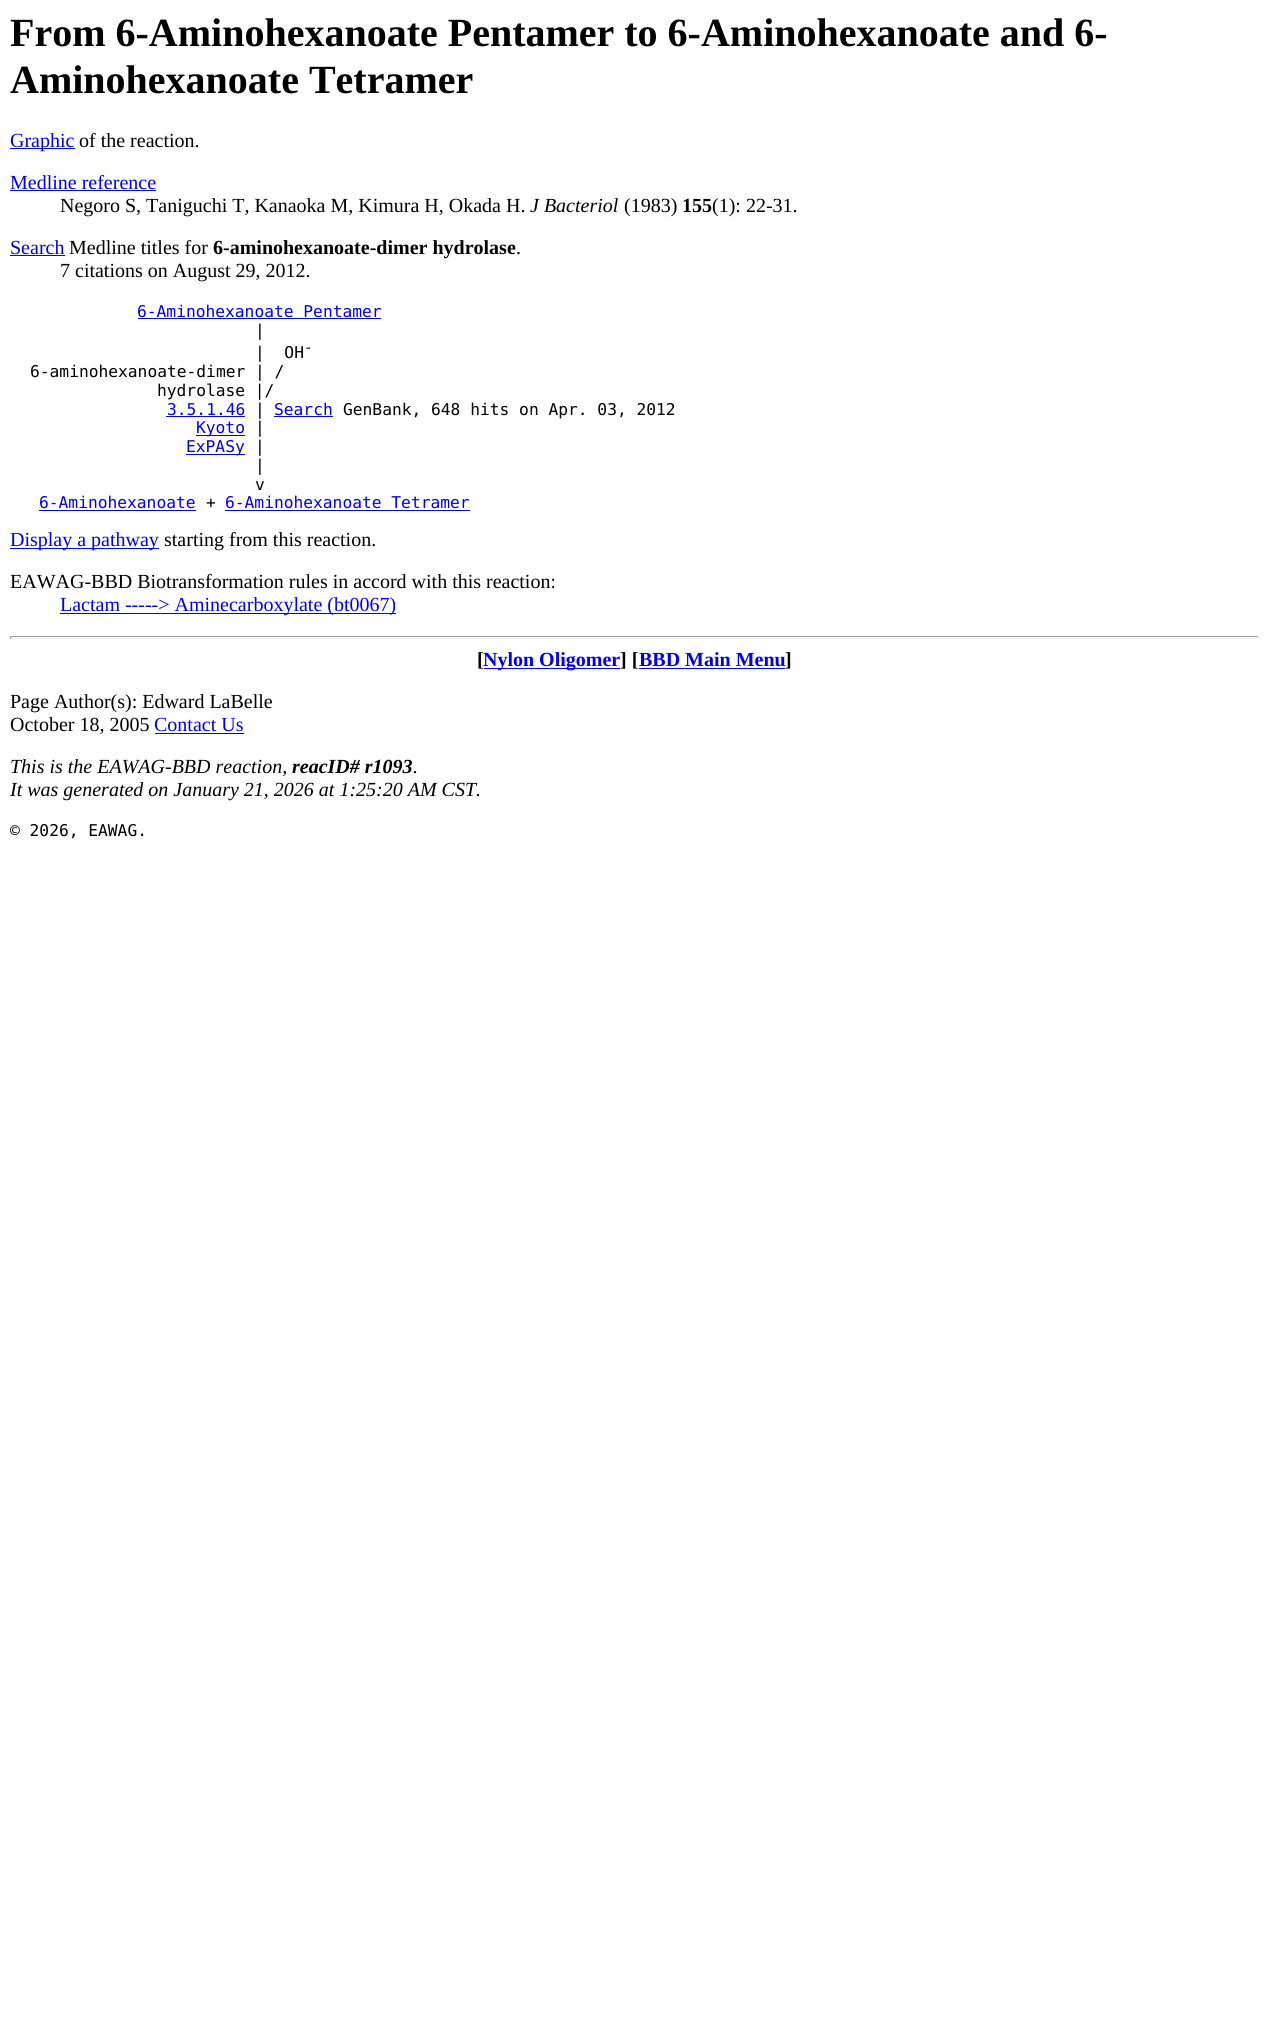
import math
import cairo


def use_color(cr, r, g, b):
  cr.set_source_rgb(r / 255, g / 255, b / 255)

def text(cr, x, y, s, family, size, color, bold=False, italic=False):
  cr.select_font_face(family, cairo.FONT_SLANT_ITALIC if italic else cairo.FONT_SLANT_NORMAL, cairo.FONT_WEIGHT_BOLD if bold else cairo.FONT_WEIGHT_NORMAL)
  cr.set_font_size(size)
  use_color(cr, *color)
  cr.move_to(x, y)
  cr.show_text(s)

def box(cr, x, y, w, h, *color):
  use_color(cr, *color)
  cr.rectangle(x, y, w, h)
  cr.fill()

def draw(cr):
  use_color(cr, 255, 255, 255)
  cr.paint()
  box(cr, 10, 148, 65, 1, 0, 0, 238)
  box(cr, 10, 190, 146, 1, 0, 0, 238)
  box(cr, 10, 255, 55, 1, 0, 0, 238)
  box(cr, 138, 318, 243, 1, 0, 0, 238)
  box(cr, 166, 416, 79, 1, 0, 0, 238)
  box(cr, 274, 416, 59, 1, 0, 0, 238)
  box(cr, 196, 435, 49, 1, 0, 0, 238)
  box(cr, 186, 454, 59, 1, 0, 0, 238)
  box(cr, 39, 510, 157, 1, 0, 0, 238)
  box(cr, 225, 510, 245, 1, 0, 0, 238)
  box(cr, 10, 548, 149, 1, 0, 0, 238)
  box(cr, 60, 613, 336, 1, 0, 0, 238)
  box(cr, 10, 636, 1249, 1, 159, 159, 159)
  box(cr, 1258, 636, 1, 3, 238, 238, 238)
  box(cr, 10, 638, 1249, 1, 238, 238, 238)
  box(cr, 10, 636, 1, 3, 159, 159, 159)
  box(cr, 484, 668, 136, 1, 0, 0, 238)
  box(cr, 639, 668, 146, 1, 0, 0, 238)
  box(cr, 155, 733, 89, 1, 0, 0, 238)
  text(cr, 10, 46, "From 6-Aminohexanoate Pentamer to 6-Aminohexanoate and 6-", "Liberation Serif", 40, (0, 0, 0), bold=True)
  text(cr, 10, 93, "Aminohexanoate Tetramer", "Liberation Serif", 40, (0, 0, 0), bold=True)
  text(cr, 10, 147, "Graphic", "Liberation Serif", 20, (0, 0, 238))
  text(cr, 79, 147, "of the reaction.", "Liberation Serif", 20, (0, 0, 0))
  text(cr, 10, 189, "Medline reference", "Liberation Serif", 20, (0, 0, 238))
  text(cr, 60, 212, "Negoro S, Taniguchi T, Kanaoka M, Kimura H, Okada H.", "Liberation Serif", 20, (0, 0, 0))
  text(cr, 530, 212, "J Bacteriol", "Liberation Serif", 20, (0, 0, 0), italic=True)
  text(cr, 624, 212, "(1983)", "Liberation Serif", 20, (0, 0, 0))
  text(cr, 682, 212, "155", "Liberation Serif", 20, (0, 0, 0), bold=True)
  text(cr, 712, 212, "(1): 22-31.", "Liberation Serif", 20, (0, 0, 0))
  text(cr, 10, 254, "Search", "Liberation Serif", 20, (0, 0, 238))
  text(cr, 69, 254, "Medline titles for", "Liberation Serif", 20, (0, 0, 0))
  text(cr, 213, 254, "6-aminohexanoate-dimer hydrolase", "Liberation Serif", 20, (0, 0, 0), bold=True)
  text(cr, 516, 254, ".", "Liberation Serif", 20, (0, 0, 0))
  text(cr, 60, 277, "7 citations on August 29, 2012.", "Liberation Serif", 20, (0, 0, 0))
  text(cr, 137, 317, "6-Aminohexanoate Pentamer", "DejaVu Sans Mono", 16.25, (0, 0, 238))
  text(cr, 255, 336, "|", "DejaVu Sans Mono", 16.25, (0, 0, 0))
  text(cr, 255, 358, "|  OH", "DejaVu Sans Mono", 16.25, (0, 0, 0))
  text(cr, 304, 352, "-", "DejaVu Sans Mono", 14, (0, 0, 0))
  text(cr, 30, 377, "6-aminohexanoate-dimer | /", "DejaVu Sans Mono", 16.25, (0, 0, 0))
  text(cr, 157, 396, "hydrolase |/", "DejaVu Sans Mono", 16.25, (0, 0, 0))
  text(cr, 167, 415, "3.5.1.46", "DejaVu Sans Mono", 16.25, (0, 0, 238))
  text(cr, 255, 415, "|", "DejaVu Sans Mono", 16.25, (0, 0, 0))
  text(cr, 274, 415, "Search", "DejaVu Sans Mono", 16.25, (0, 0, 238))
  text(cr, 343, 415, "GenBank, 648 hits on Apr. 03, 2012", "DejaVu Sans Mono", 16.25, (0, 0, 0))
  text(cr, 196, 433, "Kyoto", "DejaVu Sans Mono", 16.25, (0, 0, 238))
  text(cr, 255, 433, "|", "DejaVu Sans Mono", 16.25, (0, 0, 0))
  text(cr, 186, 452, "ExPASy", "DejaVu Sans Mono", 16.25, (0, 0, 238))
  text(cr, 255, 452, "|", "DejaVu Sans Mono", 16.25, (0, 0, 0))
  text(cr, 255, 471, "|", "DejaVu Sans Mono", 16.25, (0, 0, 0))
  text(cr, 255, 490, "v", "DejaVu Sans Mono", 16.25, (0, 0, 0))
  text(cr, 39, 508, "6-Aminohexanoate", "DejaVu Sans Mono", 16.25, (0, 0, 238))
  text(cr, 206, 508, "+", "DejaVu Sans Mono", 16.25, (0, 0, 0))
  text(cr, 225, 508, "6-Aminohexanoate Tetramer", "DejaVu Sans Mono", 16.25, (0, 0, 238))
  text(cr, 10, 546, "Display a pathway", "Liberation Serif", 20, (0, 0, 238))
  text(cr, 164, 546, "starting from this reaction.", "Liberation Serif", 20, (0, 0, 0))
  text(cr, 10, 588, "EAWAG-BBD Biotransformation rules in accord with this reaction:", "Liberation Serif", 20, (0, 0, 0))
  text(cr, 60, 611, "Lactam -----> Aminecarboxylate (bt0067)", "Liberation Serif", 20, (0, 0, 238))
  text(cr, 477, 666, "[", "Liberation Serif", 20, (0, 0, 0), bold=True)
  text(cr, 483, 666, "Nylon Oligomer", "Liberation Serif", 20, (0, 0, 238), bold=True)
  text(cr, 620, 666, "] [", "Liberation Serif", 20, (0, 0, 0), bold=True)
  text(cr, 639, 666, "BBD Main Menu", "Liberation Serif", 20, (0, 0, 238), bold=True)
  text(cr, 785, 666, "]", "Liberation Serif", 20, (0, 0, 0), bold=True)
  text(cr, 10, 708, "Page Author(s): Edward LaBelle", "Liberation Serif", 20, (0, 0, 0))
  text(cr, 10, 731, "October 18, 2005", "Liberation Serif", 20, (0, 0, 0))
  text(cr, 154, 731, "Contact Us", "Liberation Serif", 20, (0, 0, 238))
  text(cr, 10, 773, "This is the EAWAG-BBD reaction,", "Liberation Serif", 20, (0, 0, 0), italic=True)
  text(cr, 292, 773, "reacID# r1093", "Liberation Serif", 20, (0, 0, 0), bold=True, italic=True)
  text(cr, 413, 773, ".", "Liberation Serif", 20, (0, 0, 0), italic=True)
  text(cr, 10, 796, "It was generated on January 21, 2026 at 1:25:20 AM CST.", "Liberation Serif", 20, (0, 0, 0), italic=True)
  text(cr, 10, 836, "© 2026, EAWAG.", "DejaVu Sans Mono", 16.25, (0, 0, 0))


surface = cairo.ImageSurface(cairo.FORMAT_RGB24, 1268, 2027)
cr = cairo.Context(surface)
options = cairo.FontOptions()
options.set_hint_metrics(cairo.HINT_METRICS_OFF)
options.set_hint_style(cairo.HINT_STYLE_NONE)
cr.set_font_options(options)
cr.set_miter_limit(4)
draw(cr)
surface.write_to_png("out.png")
